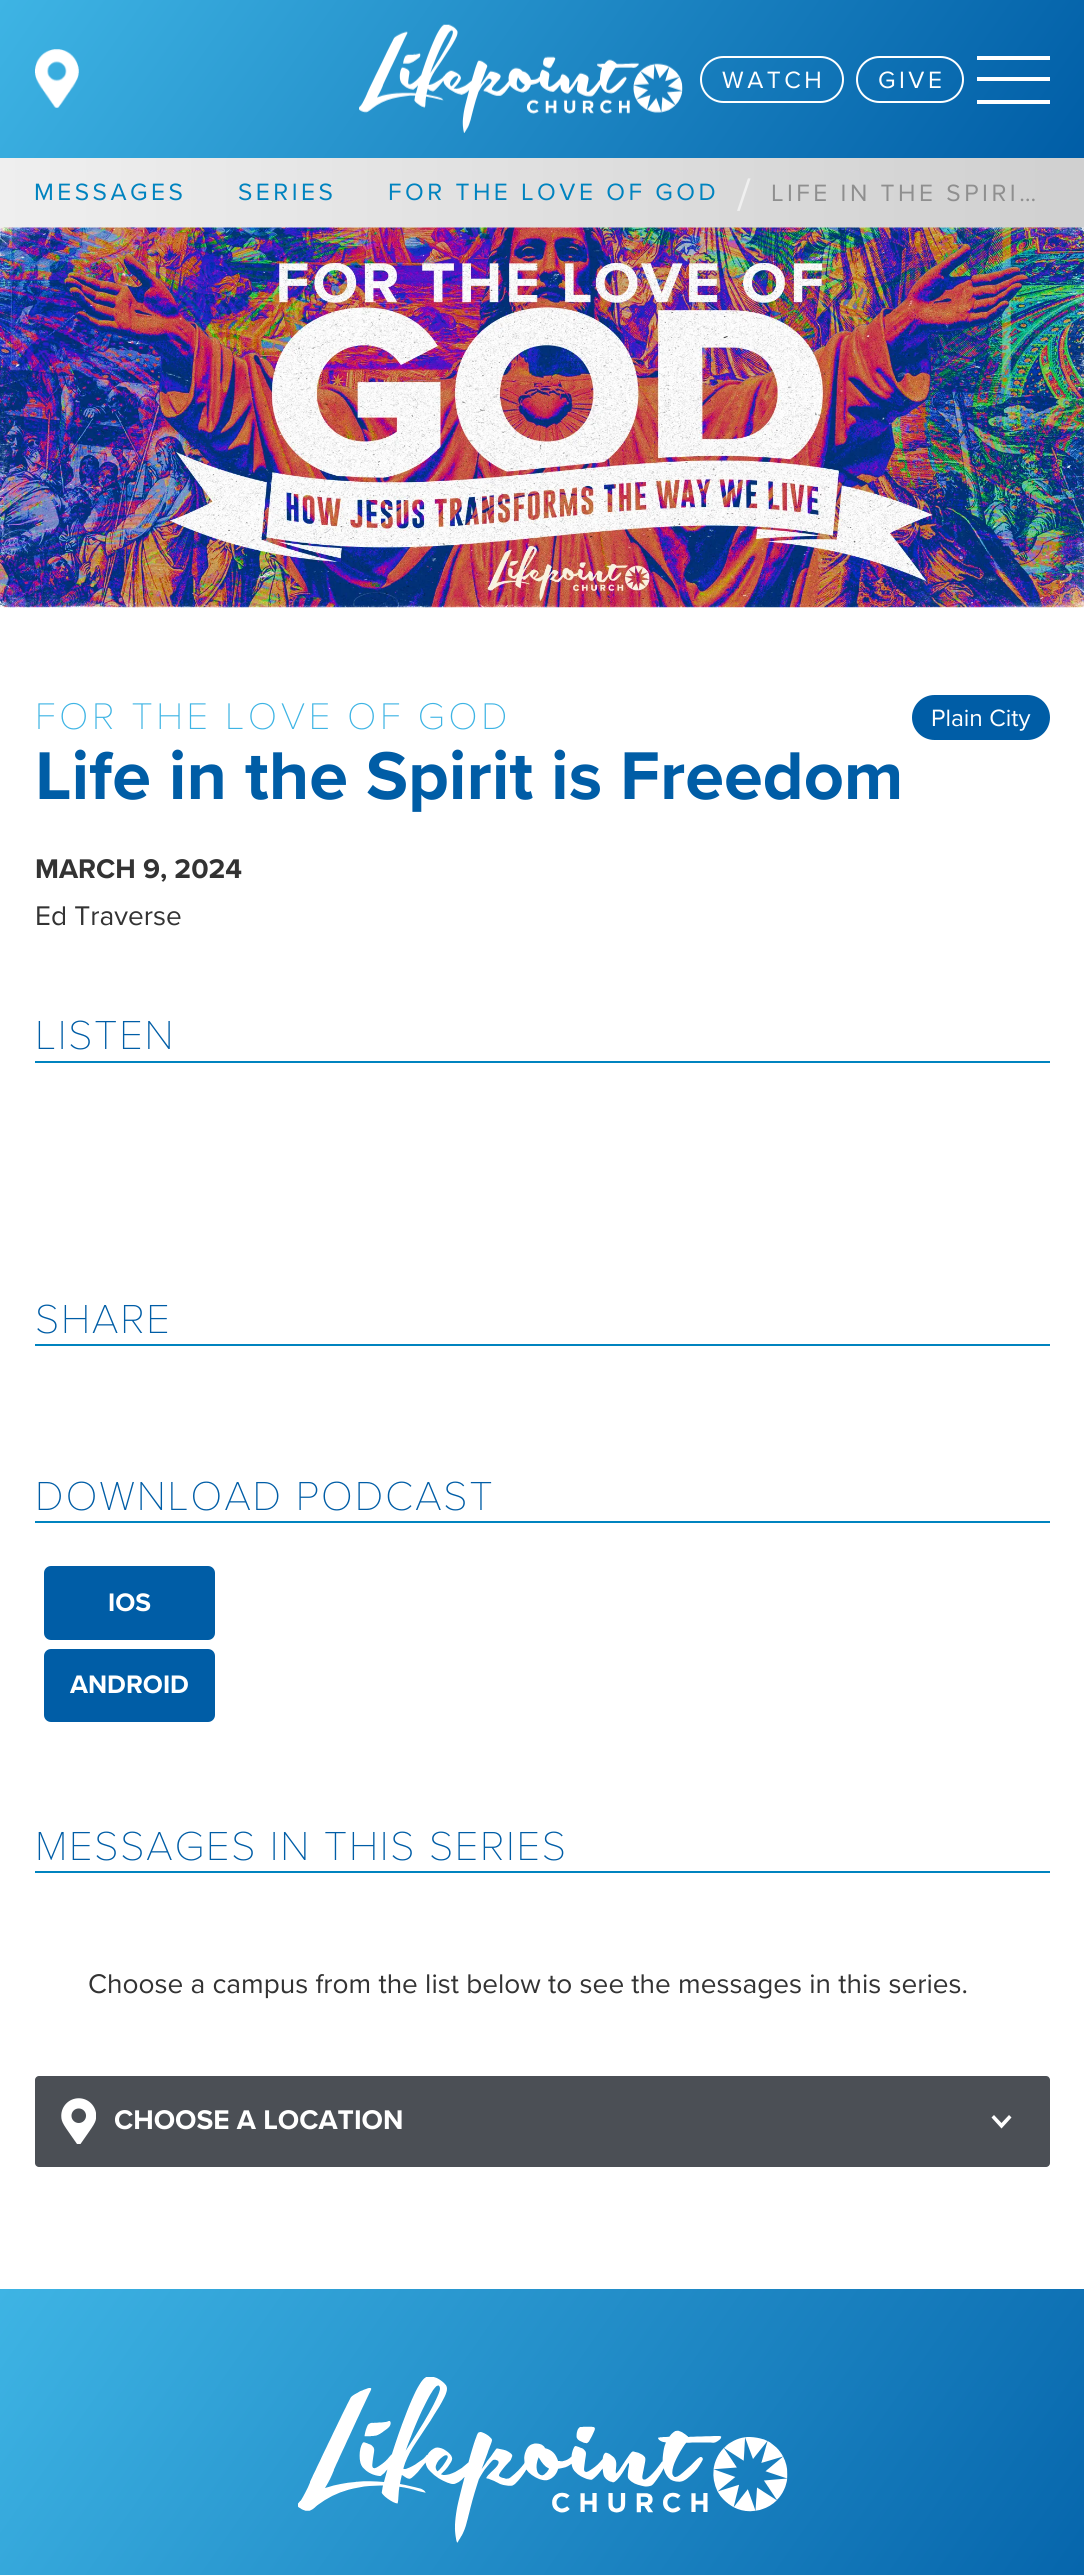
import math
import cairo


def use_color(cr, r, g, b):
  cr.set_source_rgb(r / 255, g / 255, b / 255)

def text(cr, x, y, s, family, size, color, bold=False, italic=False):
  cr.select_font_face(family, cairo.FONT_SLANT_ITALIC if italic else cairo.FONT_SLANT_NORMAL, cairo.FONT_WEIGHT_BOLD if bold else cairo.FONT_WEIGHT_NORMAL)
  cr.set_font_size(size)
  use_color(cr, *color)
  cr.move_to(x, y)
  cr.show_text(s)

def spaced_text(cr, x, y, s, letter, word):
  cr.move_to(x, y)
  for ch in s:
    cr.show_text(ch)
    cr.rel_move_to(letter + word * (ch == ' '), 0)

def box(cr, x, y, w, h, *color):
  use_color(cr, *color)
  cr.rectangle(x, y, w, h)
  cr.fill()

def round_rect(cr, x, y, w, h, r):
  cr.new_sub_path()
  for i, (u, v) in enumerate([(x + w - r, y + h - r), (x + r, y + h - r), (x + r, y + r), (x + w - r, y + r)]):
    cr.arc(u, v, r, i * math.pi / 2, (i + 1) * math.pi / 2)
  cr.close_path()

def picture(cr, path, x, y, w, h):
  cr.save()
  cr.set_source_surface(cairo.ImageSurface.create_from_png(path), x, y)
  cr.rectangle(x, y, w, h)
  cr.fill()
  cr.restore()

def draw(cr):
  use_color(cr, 255, 255, 255)
  cr.paint()
  gradient = cairo.LinearGradient(141, -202, 944, 360)
  gradient.add_color_stop_rgba(0, 0.243, 0.706, 0.894, 1)
  gradient.add_color_stop_rgba(1, 0, 0.365, 0.651, 1)
  cr.set_source(gradient)
  cr.rectangle(0, 0, 1084, 158)
  cr.fill()
  picture(cr, "img_01.png", 35, 49, 44, 59)
  picture(cr, "img_02.png", 359, 24, 324, 109)
  round_rect(cr, 701, 57, 142, 45, 22.5)
  use_color(cr, 255, 255, 255)
  cr.stroke()
  round_rect(cr, 857, 57, 106, 45, 22.5)
  cr.stroke()
  box(cr, 977, 56, 73, 4, 255, 255, 255)
  box(cr, 977, 77, 73, 4, 255, 255, 255)
  box(cr, 977, 100, 73, 4, 255, 255, 255)
  gradient = cairo.LinearGradient(0, 193, 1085, 192)
  gradient.add_color_stop_rgba(0, 0.937, 0.937, 0.937, 1)
  gradient.add_color_stop_rgba(1, 0.816, 0.816, 0.816, 1)
  cr.set_source(gradient)
  cr.rectangle(0, 158, 1084, 70)
  cr.fill()
  picture(cr, "img_03.png", 0, 227, 1084, 381)
  use_color(cr, 0, 93, 166)
  round_rect(cr, 912, 695, 138, 45, 22.5)
  cr.fill()
  box(cr, 35, 1061, 1015, 2, 0, 131, 191)
  box(cr, 35, 1344, 1015, 2, 0, 131, 191)
  box(cr, 35, 1521, 1015, 2, 0, 131, 191)
  use_color(cr, 0, 93, 166)
  round_rect(cr, 44, 1566, 171, 74, 7)
  cr.fill()
  round_rect(cr, 44, 1649, 171, 73, 7)
  cr.fill()
  box(cr, 35, 1871, 1015, 2, 0, 131, 191)
  use_color(cr, 75, 79, 85)
  round_rect(cr, 35, 2076, 1015, 91, 4)
  cr.fill()
  picture(cr, "img_04.png", 61, 2098, 35, 46)
  use_color(cr, 255, 255, 255)
  cr.new_path()
  cr.move_to(1009, 2115)
  cr.line_to(1001.5, 2123)
  cr.line_to(994, 2115)
  cr.line_to(991.5, 2117.5)
  cr.line_to(1001.5, 2128.5)
  cr.line_to(1011.5, 2117.5)
  cr.close_path()
  cr.fill()
  gradient = cairo.LinearGradient(66, 2194, 1019, 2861)
  gradient.add_color_stop_rgba(0, 0.243, 0.706, 0.894, 1)
  gradient.add_color_stop_rgba(1, 0, 0.365, 0.651, 1)
  cr.set_source(gradient)
  cr.rectangle(0, 2289, 1084, 286)
  cr.fill()
  picture(cr, "img_05.png", 298, 2377, 490, 166)
  cr.select_font_face("Proxima Nova")
  cr.set_font_size(24.5)
  use_color(cr, 255, 255, 255)
  spaced_text(cr, 722, 88, "WATCH", 3.5, 0)
  spaced_text(cr, 878, 88, "GIVE", 3.5, 0)
  use_color(cr, 0, 131, 191)
  spaced_text(cr, 34, 200, "MESSAGES", 3.5, 0)
  spaced_text(cr, 238, 200, "SERIES", 3.5, 0)
  spaced_text(cr, 388, 200, "FOR THE LOVE OF GOD", 3.5, 0)
  text(cr, 737, 210, "/", "Proxima Nova", 46, (240, 240, 240))
  cr.set_font_size(24.5)
  use_color(cr, 143, 143, 143)
  spaced_text(cr, 771, 201, "LIFE IN THE SPIRI…", 3.5, 0)
  cr.select_font_face("Proxima Nova Thin")
  cr.set_font_size(38.5)
  use_color(cr, 62, 180, 228)
  spaced_text(cr, 35, 729, "FOR THE LOVE OF GOD", 3.5, 0)
  text(cr, 931, 726, "Plain City", "Proxima Nova", 24.5, (255, 255, 255))
  text(cr, 35, 799, "Life in the Spirit is Freedom", "Proxima Nova", 70, (0, 93, 166), bold=True)
  text(cr, 35, 878, "MARCH 9, 2024", "Proxima Nova", 28, (51, 51, 51), bold=True)
  text(cr, 35, 925, "Ed Traverse", "Proxima Nova", 28, (51, 51, 51))
  cr.select_font_face("Proxima Nova Thin")
  cr.set_font_size(42)
  use_color(cr, 0, 93, 166)
  spaced_text(cr, 35, 1049, "LISTEN", 1.75, 0)
  spaced_text(cr, 35, 1333, "SHARE", 1.75, 0)
  spaced_text(cr, 35, 1510, "DOWNLOAD PODCAST", 1.75, 0)
  text(cr, 108, 1611, "IOS", "Proxima Nova", 26.25, (255, 255, 255), bold=True)
  text(cr, 70, 1693, "ANDROID", "Proxima Nova", 26.25, (255, 255, 255), bold=True)
  cr.select_font_face("Proxima Nova Thin")
  cr.set_font_size(42)
  use_color(cr, 0, 93, 166)
  spaced_text(cr, 35, 1860, "MESSAGES IN THIS SERIES", 1.75, 0)
  text(cr, 88, 1993, "Choose a campus from the list below to see the messages in this series.", "Proxima Nova", 28, (51, 51, 51))
  text(cr, 114, 2129, "CHOOSE A LOCATION", "Proxima Nova", 28, (255, 255, 255), bold=True)


surface = cairo.ImageSurface(cairo.FORMAT_RGB24, 1084, 2575)
cr = cairo.Context(surface)
options = cairo.FontOptions()
options.set_hint_metrics(cairo.HINT_METRICS_OFF)
options.set_hint_style(cairo.HINT_STYLE_NONE)
cr.set_font_options(options)
cr.set_miter_limit(4)
draw(cr)
surface.write_to_png("out.png")
